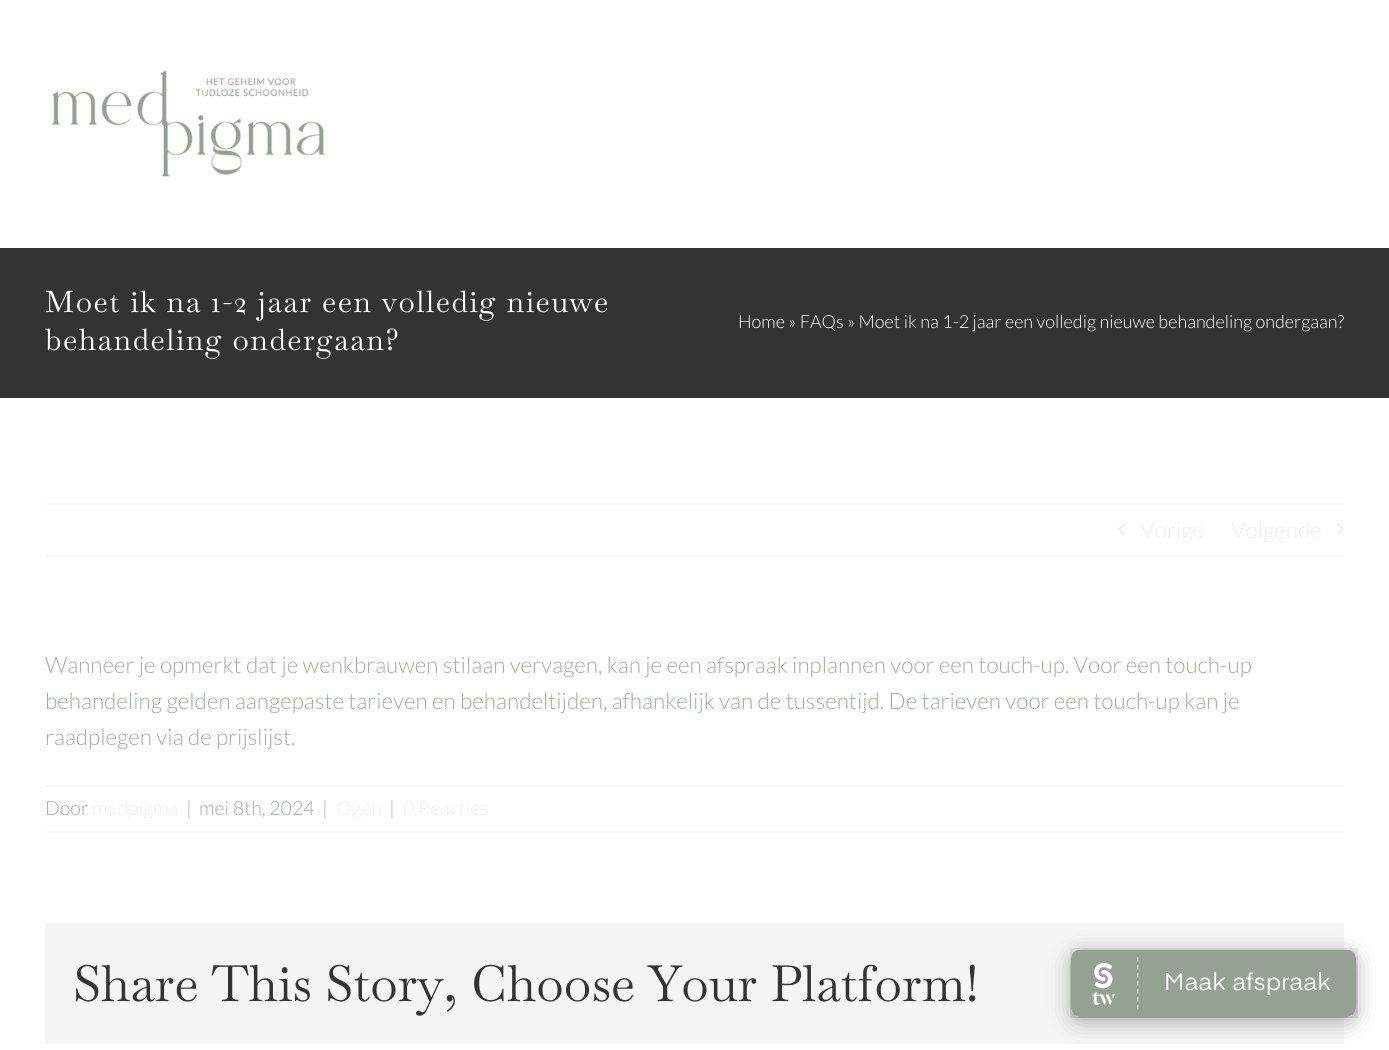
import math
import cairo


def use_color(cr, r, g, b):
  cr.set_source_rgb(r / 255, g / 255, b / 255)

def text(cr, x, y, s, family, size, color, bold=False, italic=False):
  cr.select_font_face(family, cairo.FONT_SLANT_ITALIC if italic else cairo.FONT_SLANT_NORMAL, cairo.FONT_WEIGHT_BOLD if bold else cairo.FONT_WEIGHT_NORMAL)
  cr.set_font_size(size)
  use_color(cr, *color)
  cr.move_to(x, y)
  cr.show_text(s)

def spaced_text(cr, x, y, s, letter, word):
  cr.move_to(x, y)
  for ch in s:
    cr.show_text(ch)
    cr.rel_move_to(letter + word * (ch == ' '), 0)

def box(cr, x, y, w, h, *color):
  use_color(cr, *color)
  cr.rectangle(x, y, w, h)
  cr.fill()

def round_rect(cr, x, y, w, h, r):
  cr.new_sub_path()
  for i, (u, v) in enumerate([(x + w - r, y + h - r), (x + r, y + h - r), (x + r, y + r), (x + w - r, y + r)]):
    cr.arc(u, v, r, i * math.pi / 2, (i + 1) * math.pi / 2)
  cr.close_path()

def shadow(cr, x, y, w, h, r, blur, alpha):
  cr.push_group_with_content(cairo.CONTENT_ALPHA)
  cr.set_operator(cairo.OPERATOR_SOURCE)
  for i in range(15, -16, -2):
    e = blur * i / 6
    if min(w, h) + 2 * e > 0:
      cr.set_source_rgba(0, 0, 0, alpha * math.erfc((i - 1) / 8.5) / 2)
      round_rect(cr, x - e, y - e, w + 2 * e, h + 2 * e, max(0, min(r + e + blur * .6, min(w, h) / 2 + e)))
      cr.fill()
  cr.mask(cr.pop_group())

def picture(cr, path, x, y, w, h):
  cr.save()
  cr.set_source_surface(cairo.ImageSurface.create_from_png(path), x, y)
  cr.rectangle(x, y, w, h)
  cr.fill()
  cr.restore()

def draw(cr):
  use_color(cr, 255, 255, 255)
  cr.paint()
  picture(cr, "img_01.png", 51, 70, 274, 107)
  box(cr, 0, 248, 1389, 150, 51, 51, 51)
  box(cr, 45, 503, 1299, 2, 248, 249, 250)
  box(cr, 45, 555, 1299, 2, 248, 249, 250)
  picture(cr, "img_02.png", 1118, 523, 8, 13)
  picture(cr, "img_03.png", 1336, 523, 8, 13)
  box(cr, 45, 785, 1299, 2, 248, 249, 250)
  box(cr, 45, 831, 1299, 2, 248, 249, 250)
  box(cr, 45, 923, 1299, 121, 245, 245, 245)
  use_color(cr, 0, 0, 0)
  shadow(cr, 1071, 954, 285, 68, 9, 11, 0.3)
  picture(cr, "img_04.png", 1070, 948, 288, 70)
  cr.select_font_face("Baskervville")
  cr.set_font_size(29.75)
  use_color(cr, 255, 255, 255)
  spaced_text(cr, 45, 312, "Moet ik na 1-2 jaar een volledig nieuwe", 1.5, 0)
  spaced_text(cr, 45, 350, "behandeling ondergaan?", 1.5, 0)
  text(cr, 738, 328, "Home » FAQs » Moet ik na 1-2 jaar een volledig nieuwe behandeling ondergaan?", "Lato Light", 18, (255, 255, 255))
  text(cr, 1140, 538, "Vorige", "Lato Light", 22.5, (233, 239, 231))
  text(cr, 1231, 538, "Volgende", "Lato Light", 22.5, (233, 239, 231))
  text(cr, 45, 673, "Wanneer je opmerkt dat je wenkbrauwen stilaan vervagen, kan je een afspraak inplannen voor een touch-up. Voor een touch-up", "Lato Light", 22.5, (161, 172, 160))
  text(cr, 45, 709, "behandeling gelden aangepaste tarieven en behandeltijden, afhankelijk van de tussentijd. De tarieven voor een touch-up kan je", "Lato Light", 22.5, (161, 172, 160))
  text(cr, 45, 745, "raadplegen via de prijslijst.", "Lato Light", 22.5, (161, 172, 160))
  text(cr, 45, 815, "Door", "Lato Light", 19.5, (161, 172, 160))
  text(cr, 92, 815, "medpigma", "Lato Light", 19.5, (233, 239, 231))
  text(cr, 186, 815, "|", "Lato Light", 19.5, (161, 172, 160))
  text(cr, 199, 815, "mei 8th, 2024", "Lato Light", 19.5, (161, 172, 160))
  text(cr, 322, 815, "|", "Lato Light", 19.5, (161, 172, 160))
  text(cr, 336, 815, "Ogen", "Lato Light", 19.5, (233, 239, 231))
  text(cr, 389, 815, "|", "Lato Light", 19.5, (161, 172, 160))
  text(cr, 403, 815, "0 Reacties", "Lato Light", 19.5, (233, 239, 231))
  text(cr, 73, 1001, "Share This Story, Choose Your Platform!", "Baskervville", 50.1, (51, 51, 51))


surface = cairo.ImageSurface(cairo.FORMAT_RGB24, 1389, 1050)
cr = cairo.Context(surface)
options = cairo.FontOptions()
options.set_hint_metrics(cairo.HINT_METRICS_OFF)
options.set_hint_style(cairo.HINT_STYLE_NONE)
cr.set_font_options(options)
cr.set_miter_limit(4)
draw(cr)
surface.write_to_png("out.png")
